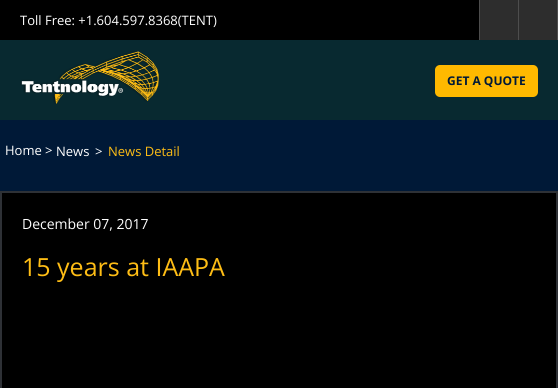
import math
import cairo


def use_color(cr, r, g, b):
  cr.set_source_rgb(r / 255, g / 255, b / 255)

def text(cr, x, y, s, family, size, color, bold=False, italic=False):
  cr.select_font_face(family, cairo.FONT_SLANT_ITALIC if italic else cairo.FONT_SLANT_NORMAL, cairo.FONT_WEIGHT_BOLD if bold else cairo.FONT_WEIGHT_NORMAL)
  cr.set_font_size(size)
  use_color(cr, *color)
  cr.move_to(x, y)
  cr.show_text(s)

def box(cr, x, y, w, h, *color):
  use_color(cr, *color)
  cr.rectangle(x, y, w, h)
  cr.fill()

def round_rect(cr, x, y, w, h, r):
  cr.new_sub_path()
  for i, (u, v) in enumerate([(x + w - r, y + h - r), (x + r, y + h - r), (x + r, y + r), (x + w - r, y + r)]):
    cr.arc(u, v, r, i * math.pi / 2, (i + 1) * math.pi / 2)
  cr.close_path()

def picture(cr, path, x, y, w, h):
  cr.save()
  cr.set_source_surface(cairo.ImageSurface.create_from_png(path), x, y)
  cr.rectangle(x, y, w, h)
  cr.fill()
  cr.restore()

def draw(cr):
  use_color(cr, 0, 25, 55)
  cr.paint()
  box(cr, 0, 40, 558, 80, 8, 41, 48)
  box(cr, 0, 0, 479, 40, 0, 0, 0)
  box(cr, 557, 0, 1, 40, 77, 77, 77)
  box(cr, 479, 0, 1, 40, 77, 77, 77)
  box(cr, 480, 0, 38, 40, 45, 45, 45)
  box(cr, 518, 0, 1, 40, 77, 77, 77)
  box(cr, 519, 0, 38, 40, 45, 45, 45)
  picture(cr, "img_01.png", 20, 51, 139, 53)
  use_color(cr, 255, 185, 0)
  round_rect(cr, 435, 65, 103, 32, 5)
  cr.fill()
  cr.rectangle(1, 192, 556, 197)
  use_color(cr, 46, 49, 54)
  cr.stroke()
  box(cr, 2, 193, 554, 195, 0, 0, 0)
  text(cr, 20, 25, "Toll Free: +1.604.597.8368(TENT)", "Open Sans", 13, (255, 255, 255))
  text(cr, 447, 85, "GET A QUOTE", "Open Sans", 12, (0, 25, 55), bold=True)
  text(cr, 5, 155, "Home >", "Open Sans", 13, (255, 255, 255))
  text(cr, 56, 156, "News", "Open Sans", 13, (255, 255, 255))
  text(cr, 95, 156, ">", "Open Sans", 13, (255, 255, 255))
  text(cr, 108, 156, "News Detail", "Open Sans", 13, (254, 189, 21))
  text(cr, 22, 229, "December 07, 2017", "Open Sans", 14, (255, 255, 255))
  text(cr, 22, 276, "15 years at IAAPA", "Open Sans", 25, (254, 189, 21))


surface = cairo.ImageSurface(cairo.FORMAT_RGB24, 558, 388)
cr = cairo.Context(surface)
options = cairo.FontOptions()
options.set_hint_metrics(cairo.HINT_METRICS_OFF)
options.set_hint_style(cairo.HINT_STYLE_NONE)
cr.set_font_options(options)
cr.set_miter_limit(4)
draw(cr)
surface.write_to_png("out.png")
